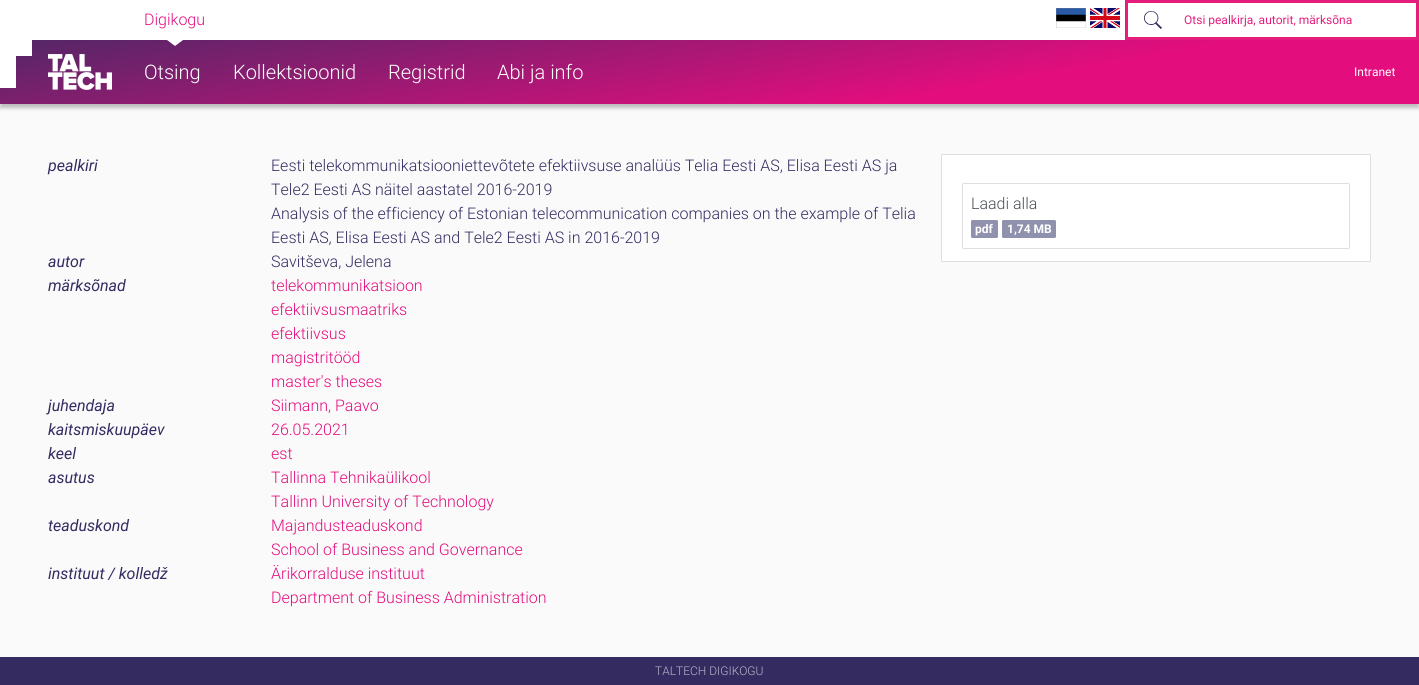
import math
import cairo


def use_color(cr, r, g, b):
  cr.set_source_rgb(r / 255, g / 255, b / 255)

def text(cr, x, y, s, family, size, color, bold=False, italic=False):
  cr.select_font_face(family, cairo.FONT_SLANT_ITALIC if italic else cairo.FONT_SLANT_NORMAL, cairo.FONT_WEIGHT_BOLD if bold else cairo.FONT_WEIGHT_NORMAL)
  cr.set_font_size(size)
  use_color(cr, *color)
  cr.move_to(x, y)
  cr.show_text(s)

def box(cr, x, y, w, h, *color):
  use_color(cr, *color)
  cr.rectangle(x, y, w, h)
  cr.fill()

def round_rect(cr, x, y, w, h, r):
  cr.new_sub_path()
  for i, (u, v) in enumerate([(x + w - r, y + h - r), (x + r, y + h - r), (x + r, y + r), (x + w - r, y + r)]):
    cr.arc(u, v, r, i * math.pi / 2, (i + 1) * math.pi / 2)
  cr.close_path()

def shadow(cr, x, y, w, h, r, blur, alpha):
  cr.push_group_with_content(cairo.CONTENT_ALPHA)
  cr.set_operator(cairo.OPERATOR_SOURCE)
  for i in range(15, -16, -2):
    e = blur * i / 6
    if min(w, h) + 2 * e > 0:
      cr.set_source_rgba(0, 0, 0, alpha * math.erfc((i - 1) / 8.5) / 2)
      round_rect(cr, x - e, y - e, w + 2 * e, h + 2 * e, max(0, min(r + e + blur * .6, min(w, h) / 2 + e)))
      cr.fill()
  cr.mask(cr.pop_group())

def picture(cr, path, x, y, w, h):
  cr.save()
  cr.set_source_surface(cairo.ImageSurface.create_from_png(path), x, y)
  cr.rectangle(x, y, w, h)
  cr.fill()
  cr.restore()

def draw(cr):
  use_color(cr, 251, 250, 251)
  cr.paint()
  box(cr, 0, 0, 1125, 40, 255, 255, 255)
  use_color(cr, 0, 0, 0)
  shadow(cr, 0, 44, 1419, 64, 0, 2, 0.25)
  gradient = cairo.LinearGradient(683, -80, 736, 224)
  gradient.add_color_stop_rgba(0, 0.318, 0.153, 0.4, 1)
  gradient.add_color_stop_rgba(0.7, 0.894, 0.051, 0.494, 1)
  cr.set_source(gradient)
  cr.rectangle(0, 40, 1419, 64)
  cr.fill()
  use_color(cr, 255, 255, 255)
  cr.new_path()
  cr.move_to(167, 40)
  cr.line_to(183, 40)
  cr.line_to(175, 46)
  cr.close_path()
  cr.fill()
  picture(cr, "img_01.png", 1056, 8, 30, 20)
  picture(cr, "img_02.png", 1090, 8, 30, 20)
  box(cr, 1125, 0, 294, 40, 228, 29, 125)
  box(cr, 1128, 3, 288, 34, 255, 255, 255)
  picture(cr, "img_03.png", 1144, 11, 18, 18)
  box(cr, 0, 40, 32, 16, 255, 255, 255)
  box(cr, 0, 56, 16, 32, 255, 255, 255)
  picture(cr, "img_04.png", 48, 54, 64, 36)
  round_rect(cr, 941.5, 154.5, 429, 107, 1)
  cr.fill_preserve()
  use_color(cr, 223, 223, 223)
  cr.set_line_width(1)
  cr.stroke()
  round_rect(cr, 962.5, 183.5, 387, 65, 1)
  cr.stroke()
  use_color(cr, 144, 146, 173)
  round_rect(cr, 971, 220, 27, 18, 1.5)
  cr.fill()
  round_rect(cr, 1002, 220, 54, 18, 1.5)
  cr.fill()
  box(cr, 0, 657, 1419, 28, 52, 44, 97)
  text(cr, 144, 25, "Digikogu", "Roboto Light", 16, (228, 13, 126))
  text(cr, 1184, 24, "Otsi pealkirja, autorit, märksõna", "Roboto", 12, (228, 29, 125))
  text(cr, 144, 79, "Otsing", "Roboto Light", 20, (255, 255, 255))
  text(cr, 233, 79, "Kollektsioonid", "Roboto Light", 20, (255, 255, 255))
  text(cr, 388, 79, "Registrid", "Roboto Light", 20, (255, 255, 255))
  text(cr, 497, 79, "Abi ja info", "Roboto Light", 20, (255, 255, 255))
  text(cr, 1354, 76, "Intranet", "Roboto", 12, (255, 255, 255))
  text(cr, 48, 171, "pealkiri", "Roboto", 16, (52, 44, 97), italic=True)
  text(cr, 271, 171, "Eesti telekommunikatsiooniettevõtete efektiivsuse analüüs Telia Eesti AS, Elisa Eesti AS ja", "Roboto Light", 16, (52, 44, 97))
  text(cr, 271, 195, "Tele2 Eesti AS näitel aastatel 2016-2019", "Roboto Light", 16, (52, 44, 97))
  text(cr, 271, 219, "Analysis of the efficiency of Estonian telecommunication companies on the example of Telia", "Roboto Light", 16, (52, 44, 97))
  text(cr, 271, 243, "Eesti AS, Elisa Eesti AS and Tele2 Eesti AS in 2016-2019", "Roboto Light", 16, (52, 44, 97))
  text(cr, 48, 267, "autor", "Roboto", 16, (52, 44, 97), italic=True)
  text(cr, 271, 267, "Savitševa, Jelena", "Roboto Light", 16, (52, 44, 97))
  text(cr, 48, 291, "märksõnad", "Roboto", 16, (52, 44, 97), italic=True)
  text(cr, 271, 291, "telekommunikatsioon", "Roboto Light", 16, (228, 13, 126))
  text(cr, 271, 315, "efektiivsusmaatriks", "Roboto Light", 16, (228, 13, 126))
  text(cr, 271, 339, "efektiivsus", "Roboto Light", 16, (228, 13, 126))
  text(cr, 271, 363, "magistritööd", "Roboto Light", 16, (228, 13, 126))
  text(cr, 271, 387, "master's theses", "Roboto Light", 16, (228, 13, 126))
  text(cr, 48, 411, "juhendaja", "Roboto", 16, (52, 44, 97), italic=True)
  text(cr, 271, 411, "Siimann, Paavo", "Roboto Light", 16, (228, 13, 126))
  text(cr, 48, 435, "kaitsmiskuupäev", "Roboto", 16, (52, 44, 97), italic=True)
  text(cr, 271, 435, "26.05.2021", "Roboto Light", 16, (228, 13, 126))
  text(cr, 48, 459, "keel", "Roboto", 16, (52, 44, 97), italic=True)
  text(cr, 271, 459, "est", "Roboto Light", 16, (228, 13, 126))
  text(cr, 48, 483, "asutus", "Roboto", 16, (52, 44, 97), italic=True)
  text(cr, 271, 483, "Tallinna Tehnikaülikool", "Roboto Light", 16, (228, 13, 126))
  text(cr, 271, 507, "Tallinn University of Technology", "Roboto Light", 16, (228, 13, 126))
  text(cr, 48, 531, "teaduskond", "Roboto", 16, (52, 44, 97), italic=True)
  text(cr, 271, 531, "Majandusteaduskond", "Roboto Light", 16, (228, 13, 126))
  text(cr, 271, 555, "School of Business and Governance", "Roboto Light", 16, (228, 13, 126))
  text(cr, 48, 579, "instituut / kolledž", "Roboto", 16, (52, 44, 97), italic=True)
  text(cr, 271, 579, "Ärikorralduse instituut", "Roboto Light", 16, (228, 13, 126))
  text(cr, 271, 603, "Department of Business Administration", "Roboto Light", 16, (228, 13, 126))
  text(cr, 971, 209, "Laadi alla", "Roboto Light", 16, (73, 80, 87))
  text(cr, 975, 233, "pdf", "Roboto", 12, (255, 255, 255), bold=True)
  text(cr, 1007, 233, "1,74 MB", "Roboto", 12, (255, 255, 255), bold=True)
  text(cr, 655, 675, "TALTECH DIGIKOGU", "Roboto Light", 12, (184, 181, 200))


surface = cairo.ImageSurface(cairo.FORMAT_RGB24, 1419, 685)
cr = cairo.Context(surface)
options = cairo.FontOptions()
options.set_hint_metrics(cairo.HINT_METRICS_OFF)
options.set_hint_style(cairo.HINT_STYLE_NONE)
cr.set_font_options(options)
cr.set_miter_limit(4)
draw(cr)
surface.write_to_png("out.png")
